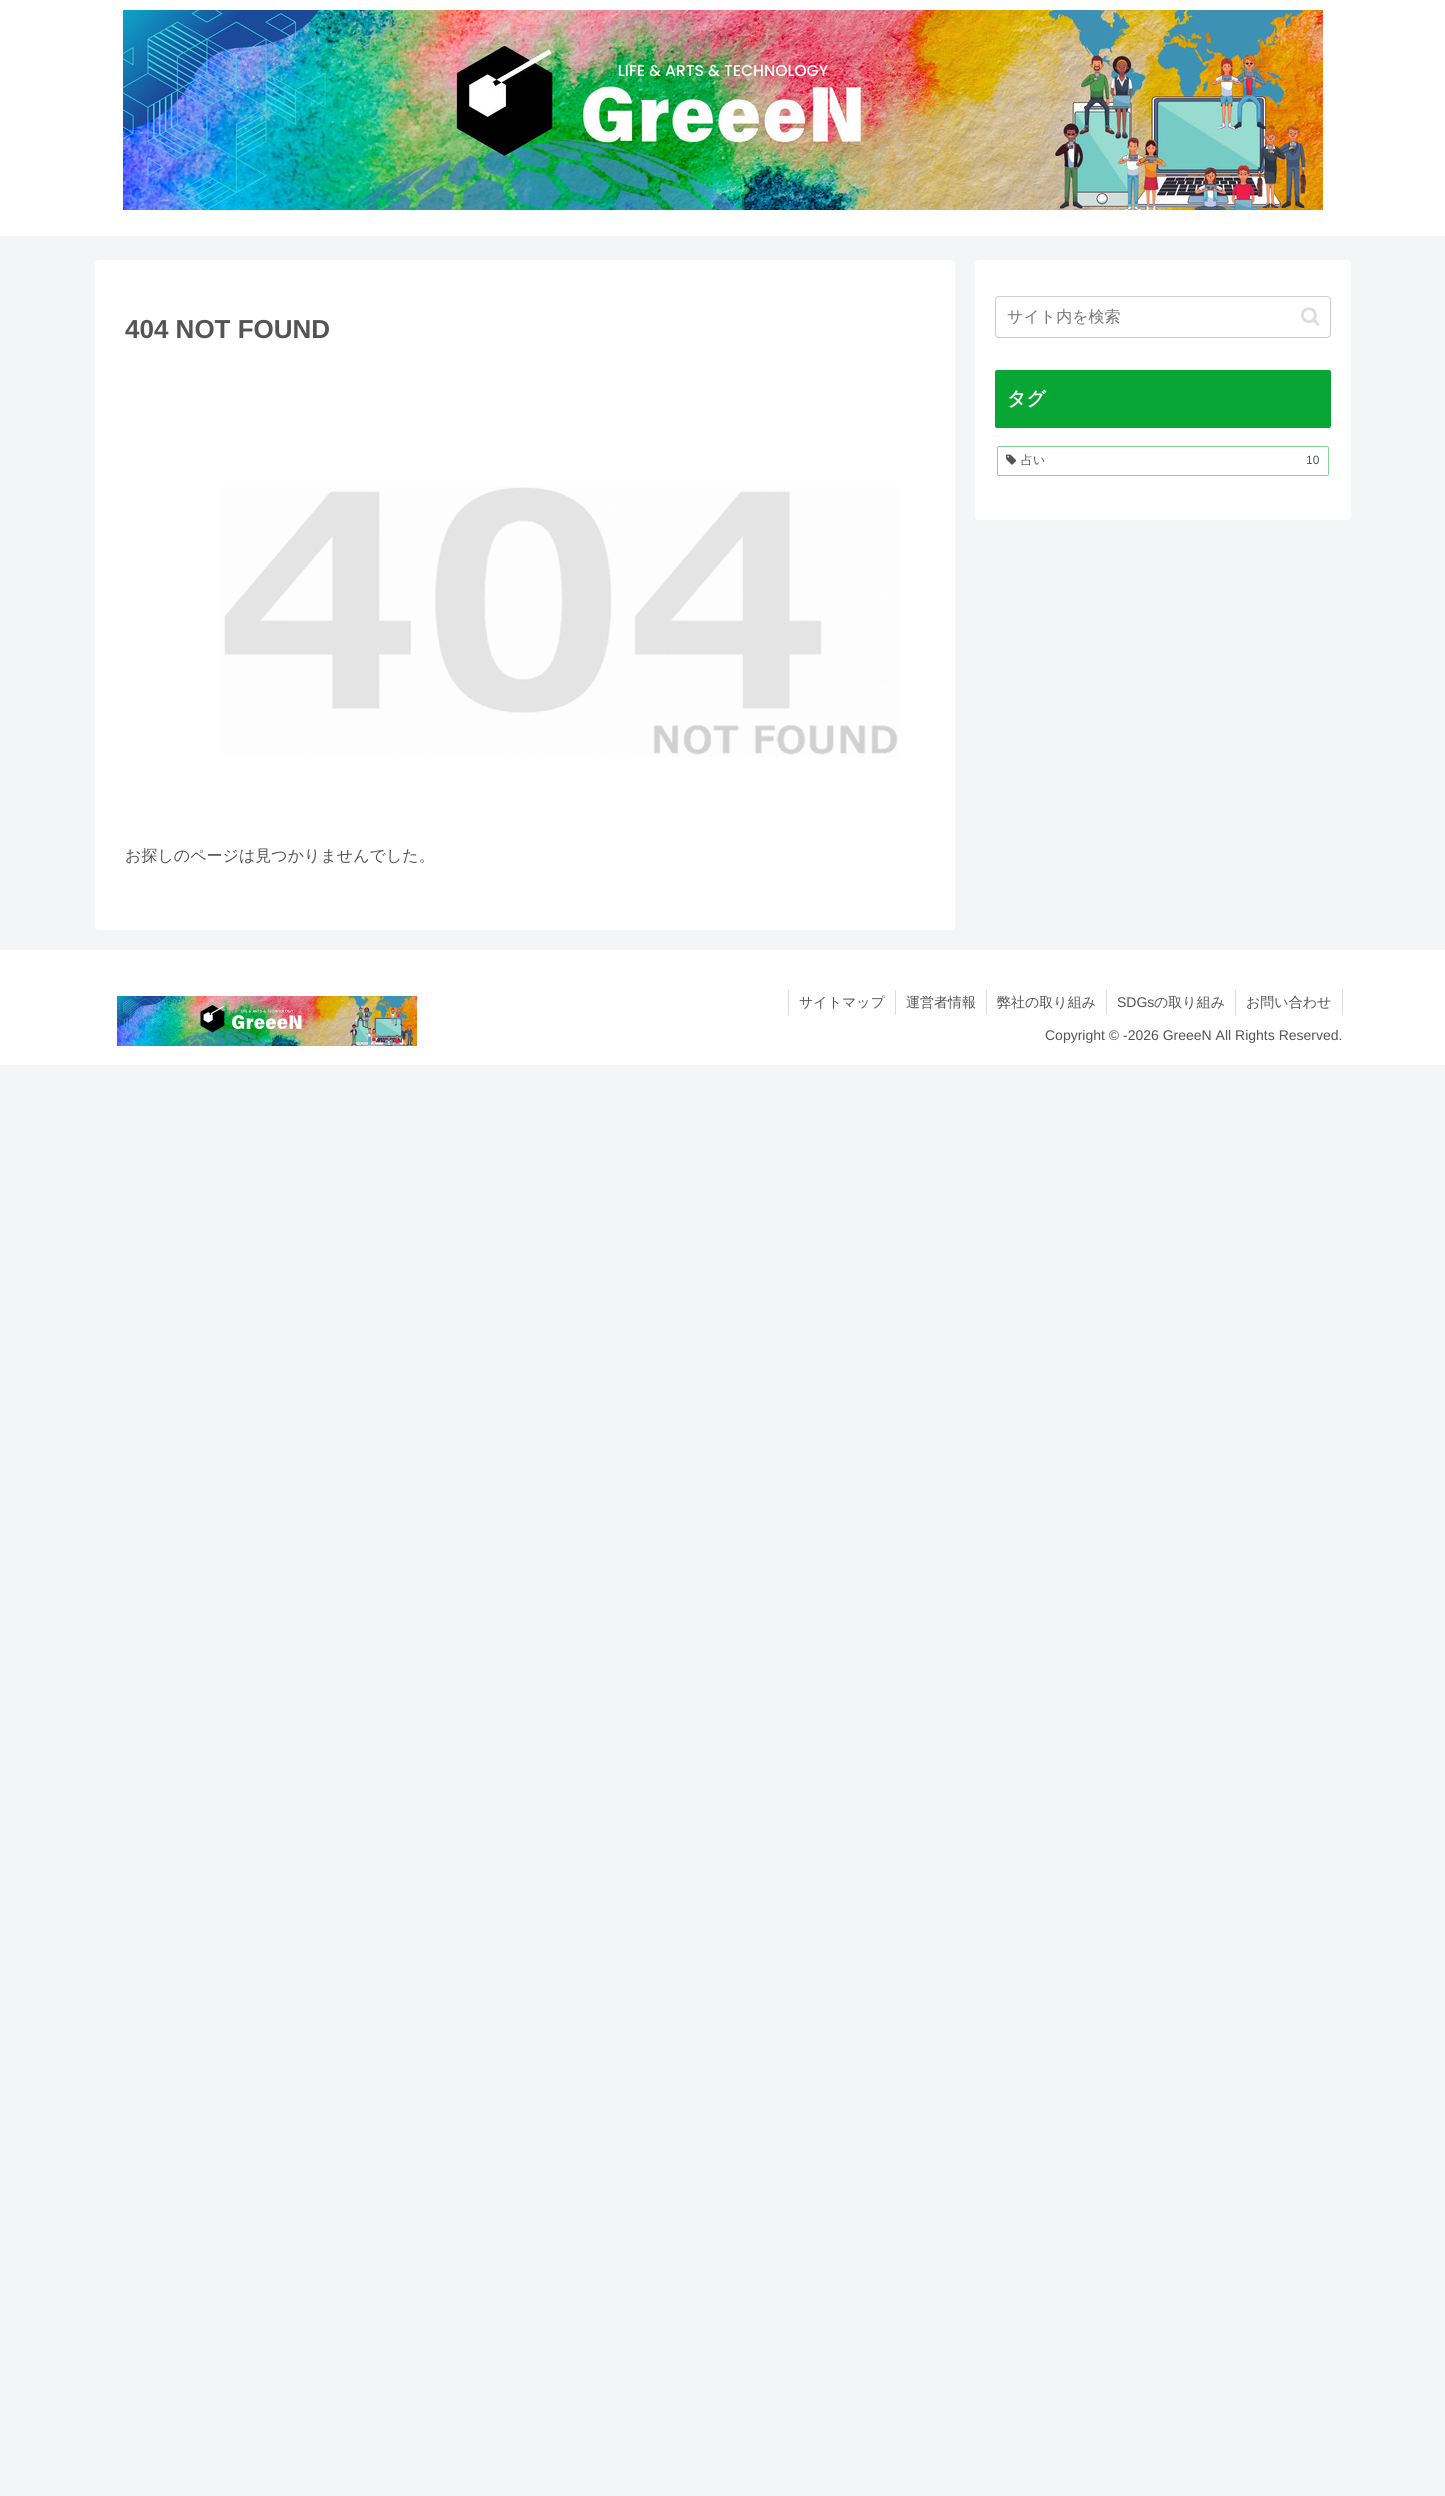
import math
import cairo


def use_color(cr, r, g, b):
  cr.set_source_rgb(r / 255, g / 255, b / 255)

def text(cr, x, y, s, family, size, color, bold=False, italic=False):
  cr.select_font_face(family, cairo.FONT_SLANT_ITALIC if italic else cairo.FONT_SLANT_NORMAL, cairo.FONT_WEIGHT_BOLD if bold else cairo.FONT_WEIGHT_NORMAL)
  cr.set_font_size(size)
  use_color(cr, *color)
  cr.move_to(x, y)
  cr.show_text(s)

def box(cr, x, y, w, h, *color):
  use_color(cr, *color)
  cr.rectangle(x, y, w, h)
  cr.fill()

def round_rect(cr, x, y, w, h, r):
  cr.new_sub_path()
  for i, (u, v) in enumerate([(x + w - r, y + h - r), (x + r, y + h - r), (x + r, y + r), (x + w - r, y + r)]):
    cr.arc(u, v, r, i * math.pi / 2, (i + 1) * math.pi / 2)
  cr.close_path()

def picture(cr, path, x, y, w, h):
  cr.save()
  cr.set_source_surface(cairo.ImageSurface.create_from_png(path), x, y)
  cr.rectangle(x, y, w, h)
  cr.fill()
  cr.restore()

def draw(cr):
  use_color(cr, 244, 245, 247)
  cr.paint()
  box(cr, 0, 0, 1445, 236, 255, 255, 255)
  picture(cr, "img_01.png", 123, 10, 1200, 200)
  round_rect(cr, 95, 260, 860, 670, 4)
  cr.fill()
  picture(cr, "img_02.png", 223, 486, 675, 271)
  round_rect(cr, 975, 260, 376, 260, 4)
  cr.fill()
  round_rect(cr, 995.5, 296.5, 335, 41, 3.5)
  use_color(cr, 204, 204, 204)
  cr.set_line_width(1)
  cr.stroke()
  picture(cr, "img_03.png", 1301, 307, 19, 19)
  use_color(cr, 8, 166, 52)
  round_rect(cr, 995, 370, 336, 58, 2)
  cr.fill()
  round_rect(cr, 997.5, 446.5, 331, 29, 1.5)
  use_color(cr, 132, 211, 154)
  cr.stroke()
  picture(cr, "img_04.png", 1006, 454, 11, 11)
  box(cr, 0, 950, 1445, 115, 255, 255, 255)
  picture(cr, "img_05.png", 117, 996, 300, 50)
  box(cr, 788, 990, 1, 25, 221, 221, 221)
  box(cr, 895, 990, 1, 25, 221, 221, 221)
  box(cr, 986, 990, 1, 25, 221, 221, 221)
  box(cr, 1106, 990, 1, 25, 221, 221, 221)
  box(cr, 1342, 990, 1, 25, 221, 221, 221)
  box(cr, 1235, 990, 1, 25, 221, 221, 221)
  text(cr, 125, 338, "404 NOT FOUND", "Liberation Sans", 26, (84, 84, 84), bold=True)
  text(cr, 125, 861, "お探しのページは見つかりませんでした。", "WenQuanYi Zen Hei Medium", 16, (84, 84, 84))
  text(cr, 1007, 322, "サイト内を検索", "WenQuanYi Zen Hei Medium", 16, (117, 117, 117))
  text(cr, 1007, 405, "タグ", "WenQuanYi Zen Hei", 19, (255, 255, 255), bold=True)
  text(cr, 1021, 464, "占い", "WenQuanYi Zen Hei Medium", 12, (84, 84, 84))
  text(cr, 1306, 464, "10", "Liberation Sans", 12, (84, 84, 84))
  text(cr, 799, 1007, "サイトマップ", "WenQuanYi Zen Hei Medium", 14, (84, 84, 84))
  text(cr, 906, 1007, "運営者情報", "WenQuanYi Zen Hei Medium", 14, (84, 84, 84))
  text(cr, 997, 1007, "弊社の取り組み", "WenQuanYi Zen Hei Medium", 14, (84, 84, 84))
  text(cr, 1117, 1007, "SDGs", "Liberation Sans", 14, (84, 84, 84))
  text(cr, 1154, 1007, "の取り組み", "WenQuanYi Zen Hei Medium", 14, (84, 84, 84))
  text(cr, 1246, 1007, "お問い合わせ", "WenQuanYi Zen Hei Medium", 14, (84, 84, 84))
  text(cr, 1045, 1040, "Copyright © -2026 GreeeN All Rights Reserved.", "Liberation Sans", 14, (84, 84, 84))


surface = cairo.ImageSurface(cairo.FORMAT_RGB24, 1445, 2496)
cr = cairo.Context(surface)
options = cairo.FontOptions()
options.set_hint_metrics(cairo.HINT_METRICS_OFF)
options.set_hint_style(cairo.HINT_STYLE_NONE)
cr.set_font_options(options)
cr.set_miter_limit(4)
draw(cr)
surface.write_to_png("out.png")
